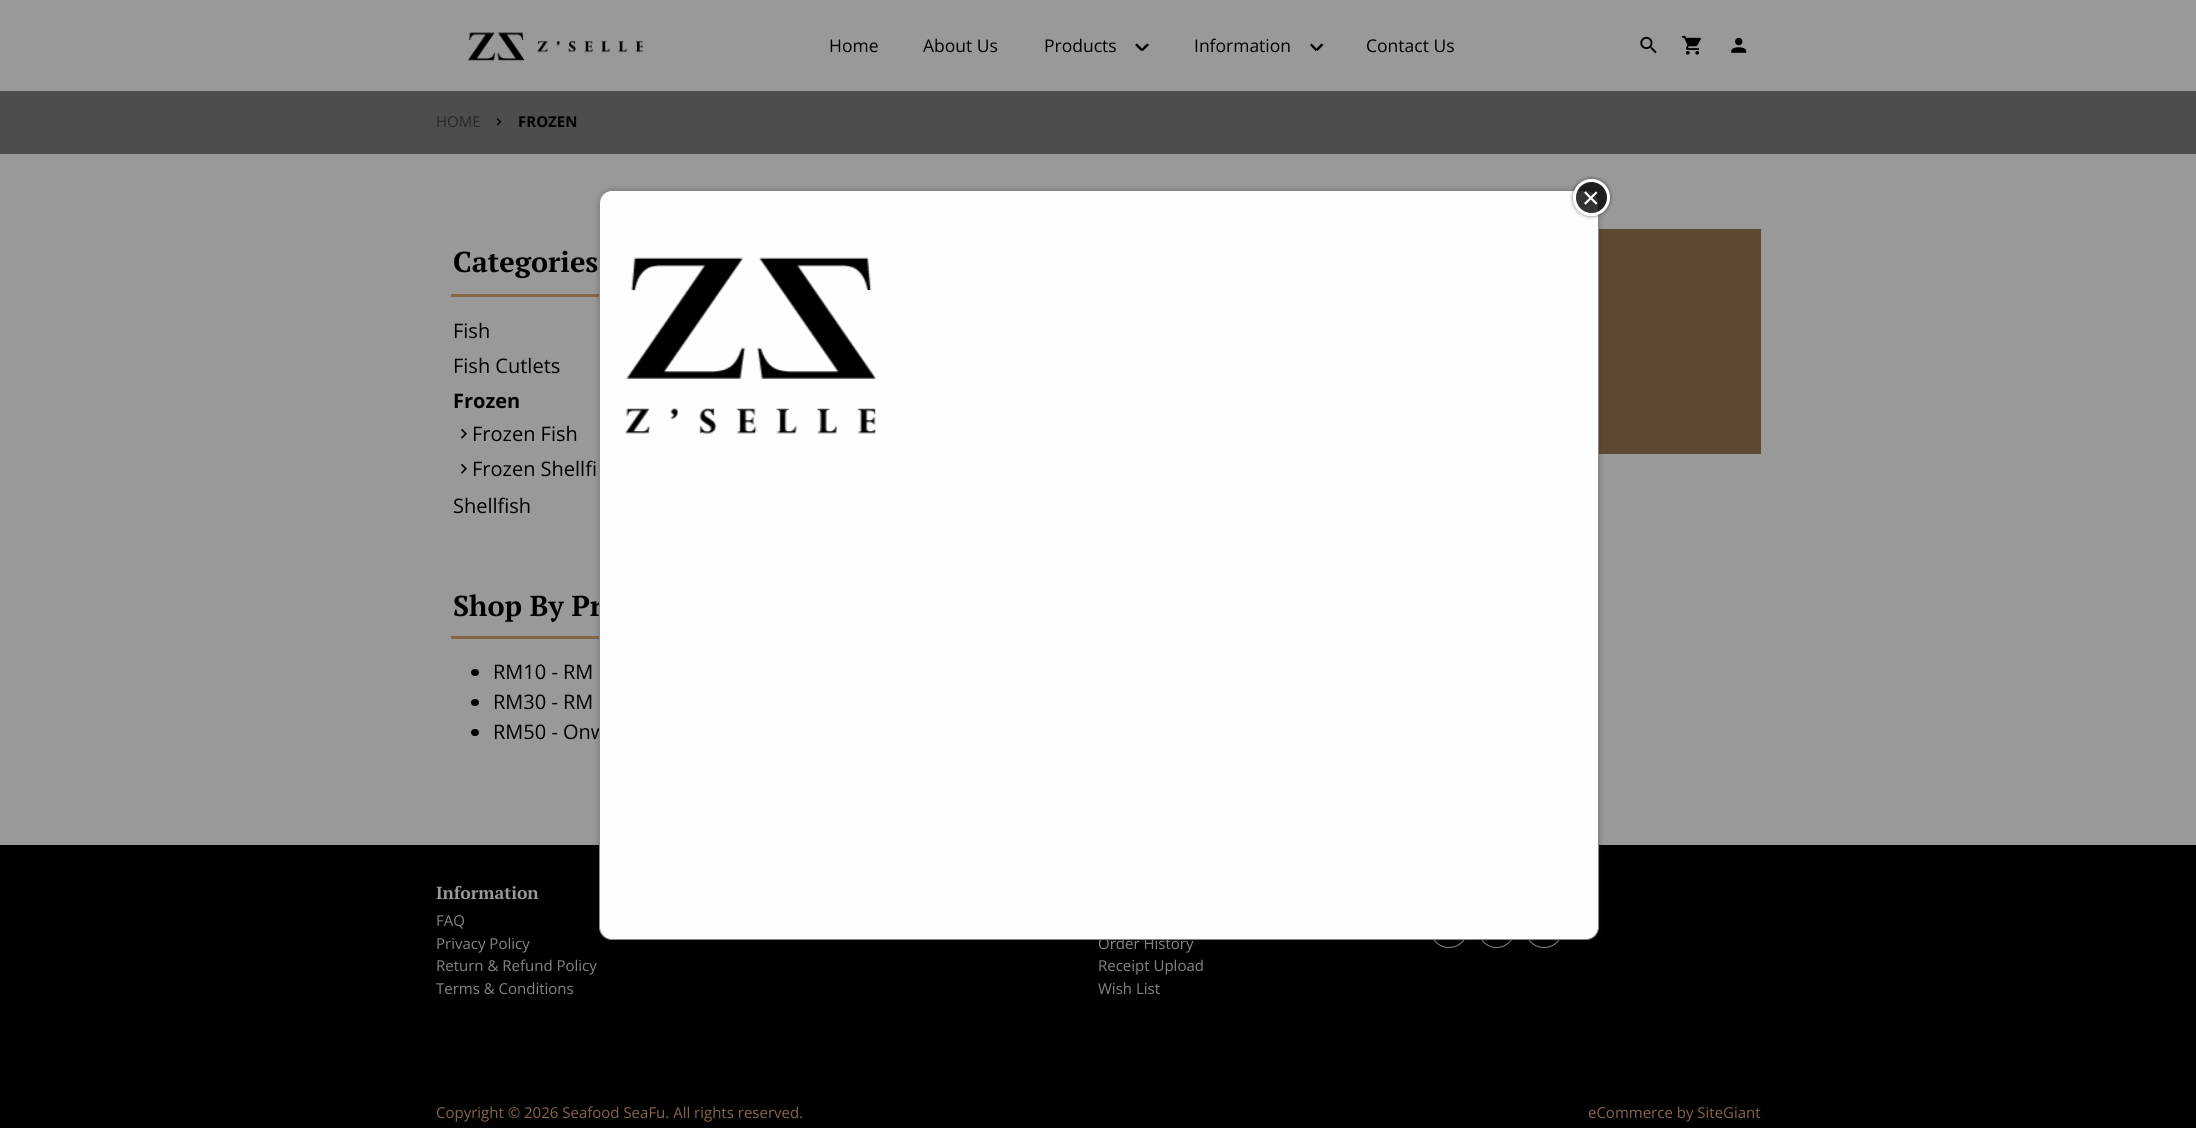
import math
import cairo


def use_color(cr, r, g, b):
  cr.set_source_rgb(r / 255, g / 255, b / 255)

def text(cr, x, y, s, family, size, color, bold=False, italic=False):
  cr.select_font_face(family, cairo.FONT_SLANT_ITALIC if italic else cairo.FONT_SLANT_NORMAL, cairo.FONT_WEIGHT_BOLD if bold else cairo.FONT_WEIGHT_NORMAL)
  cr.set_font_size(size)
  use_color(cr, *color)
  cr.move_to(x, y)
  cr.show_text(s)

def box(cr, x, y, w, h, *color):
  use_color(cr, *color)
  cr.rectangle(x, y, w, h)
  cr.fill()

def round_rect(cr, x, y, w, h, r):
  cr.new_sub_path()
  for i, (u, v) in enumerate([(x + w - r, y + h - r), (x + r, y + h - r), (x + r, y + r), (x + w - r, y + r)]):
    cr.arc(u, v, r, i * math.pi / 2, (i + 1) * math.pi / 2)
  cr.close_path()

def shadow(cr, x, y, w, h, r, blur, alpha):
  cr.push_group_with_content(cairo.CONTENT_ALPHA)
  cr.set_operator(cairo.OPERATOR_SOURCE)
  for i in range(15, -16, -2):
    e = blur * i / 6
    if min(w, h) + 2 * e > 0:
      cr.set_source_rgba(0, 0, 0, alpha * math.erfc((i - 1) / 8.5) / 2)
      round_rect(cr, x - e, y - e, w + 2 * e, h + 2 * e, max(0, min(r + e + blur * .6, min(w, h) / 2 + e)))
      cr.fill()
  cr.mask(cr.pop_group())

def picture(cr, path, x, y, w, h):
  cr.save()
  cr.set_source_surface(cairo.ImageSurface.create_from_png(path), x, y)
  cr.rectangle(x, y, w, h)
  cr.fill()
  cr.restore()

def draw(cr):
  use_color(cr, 153, 153, 153)
  cr.paint()
  picture(cr, "img_01.png", 467, 32, 176, 29)
  use_color(cr, 0, 0, 0)
  cr.new_path()
  cr.move_to(1141, 49.5)
  cr.line_to(1147, 43.5)
  cr.line_to(1149, 45)
  cr.line_to(1143, 51)
  cr.close_path()
  cr.fill()
  cr.new_path()
  cr.move_to(1135, 45)
  cr.line_to(1137, 43.5)
  cr.line_to(1143, 49.5)
  cr.line_to(1141, 51)
  cr.close_path()
  cr.fill()
  cr.new_path()
  cr.move_to(1315.5, 49.5)
  cr.line_to(1321.5, 43.5)
  cr.line_to(1323.5, 45)
  cr.line_to(1317.5, 51)
  cr.close_path()
  cr.fill()
  cr.new_path()
  cr.move_to(1310, 45)
  cr.line_to(1311.5, 43.5)
  cr.line_to(1317.5, 49.5)
  cr.line_to(1315.5, 51)
  cr.close_path()
  cr.fill()
  picture(cr, "img_02.png", 1640, 36, 17, 18)
  picture(cr, "img_03.png", 1682, 35, 19, 20)
  picture(cr, "img_04.png", 1731, 37, 16, 16)
  box(cr, 0, 91, 2196, 63, 77, 77, 77)
  picture(cr, "img_05.png", 496, 118, 6, 8)
  box(cr, 451, 294, 148, 3, 133, 103, 71)
  picture(cr, "img_06.png", 461, 428, 6, 11)
  picture(cr, "img_06.png", 461, 463, 6, 11)
  box(cr, 451, 636, 148, 3, 133, 103, 71)
  use_color(cr, 0, 0, 0)
  round_rect(cr, 471, 669, 8, 7, 3.5)
  cr.fill()
  round_rect(cr, 471, 699, 8, 7, 3.5)
  cr.fill()
  round_rect(cr, 471, 729, 8, 7, 3.5)
  cr.fill()
  box(cr, 1599, 229, 162, 225, 93, 72, 50)
  box(cr, 0, 845, 2196, 283, 0, 0, 0)
  cr.arc(1449, 929, 18.5, 0, 2 * math.pi)
  use_color(cr, 133, 133, 133)
  cr.set_line_width(1)
  cr.stroke()
  round_rect(cr, 1478.5, 910.5, 36, 37, 18)
  cr.stroke()
  cr.arc(1544, 929, 18.5, 0, 2 * math.pi)
  cr.stroke()
  use_color(cr, 34, 34, 34)
  shadow(cr, 599, 190, 1000, 750, 13, 3, 0.3)
  text(cr, 829, 52, "Home", "Open Sans", 17.5, (0, 0, 0))
  text(cr, 923, 52, "About Us", "Open Sans", 17.5, (0, 0, 0))
  text(cr, 1044, 52, "Products", "Open Sans", 17.5, (0, 0, 0))
  text(cr, 1194, 52, "Information", "Open Sans", 17.5, (0, 0, 0))
  text(cr, 1366, 52, "Contact Us", "Open Sans", 17.5, (0, 0, 0))
  text(cr, 436, 127, "HOME", "Open Sans", 15, (38, 38, 38))
  text(cr, 518, 127, "FROZEN", "Open Sans", 15, (0, 0, 0), bold=True)
  text(cr, 453, 272, "Categories", "PT Serif", 28.75, (0, 0, 0), bold=True)
  text(cr, 453, 338, "Fish", "Open Sans", 20, (0, 0, 0))
  text(cr, 453, 373, "Fish Cutlets", "Open Sans", 20, (0, 0, 0))
  text(cr, 453, 408, "Frozen", "Open Sans", 20, (0, 0, 0), bold=True)
  text(cr, 472, 441, "Frozen Fish", "Open Sans", 20, (0, 0, 0))
  text(cr, 472, 476, "Frozen Shellfi", "Open Sans", 20, (0, 0, 0))
  text(cr, 453, 513, "Shellfish", "Open Sans", 20, (0, 0, 0))
  text(cr, 453, 616, "Shop By Pr", "PT Serif", 28.75, (0, 0, 0), bold=True)
  text(cr, 493, 679, "RM10 - RM", "Open Sans", 20, (0, 0, 0))
  text(cr, 493, 709, "RM30 - RM", "Open Sans", 20, (0, 0, 0))
  text(cr, 493, 739, "RM50 - Onw", "Open Sans", 20, (0, 0, 0))
  text(cr, 436, 899, "Information", "PT Serif", 17.5, (153, 153, 153), bold=True)
  text(cr, 436, 926, "FAQ", "Open Sans", 15, (133, 133, 133))
  text(cr, 436, 949, "Privacy Policy", "Open Sans", 15, (133, 133, 133))
  text(cr, 436, 971, "Return & Refund Policy", "Open Sans", 15, (133, 133, 133))
  text(cr, 436, 994, "Terms & Conditions", "Open Sans", 15, (133, 133, 133))
  text(cr, 1098, 949, "Order History", "Open Sans", 15, (133, 133, 133))
  text(cr, 1098, 971, "Receipt Upload", "Open Sans", 15, (133, 133, 133))
  text(cr, 1098, 994, "Wish List", "Open Sans", 15, (133, 133, 133))
  text(cr, 436, 1118, "Copyright © 2026 Seafood SeaFu. All rights reserved.", "Open Sans", 15, (133, 103, 71))
  text(cr, 1588, 1118, "eCommerce by SiteGiant", "Open Sans", 15, (133, 103, 71))
  use_color(cr, 254, 254, 254)
  round_rect(cr, 599.5, 190.5, 999, 749, 12.5)
  cr.fill_preserve()
  use_color(cr, 136, 136, 136)
  cr.stroke()
  cr.save()
  cr.set_fill_rule(cairo.FILL_RULE_EVEN_ODD)
  cr.new_path()
  cr.move_to(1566, 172)
  cr.line_to(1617, 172)
  cr.line_to(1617, 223)
  cr.line_to(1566, 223)
  cr.close_path()
  cr.move_to(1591.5, 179)
  cr.curve_to(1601.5, 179, 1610, 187.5, 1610, 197.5)
  cr.curve_to(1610, 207.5, 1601.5, 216, 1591.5, 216)
  cr.curve_to(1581.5, 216, 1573, 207.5, 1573, 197.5)
  cr.curve_to(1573, 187.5, 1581.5, 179, 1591.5, 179)
  cr.close_path()
  cr.clip()
  use_color(cr, 0, 0, 0)
  shadow(cr, 1573, 179, 37, 37, 18.5, 2, 0.55)
  cr.restore()
  cr.set_source_rgba(0, 0, 0, 0.8)
  cr.arc(1591.5, 197.5, 17, 0, 2 * math.pi)
  cr.fill_preserve()
  use_color(cr, 255, 255, 255)
  cr.set_line_width(3)
  cr.stroke()
  text(cr, 1582, 208, "×", "Liberation Sans", 30, (255, 255, 255))
  picture(cr, "img_07.png", 625, 257, 251, 177)


surface = cairo.ImageSurface(cairo.FORMAT_RGB24, 2196, 1128)
cr = cairo.Context(surface)
options = cairo.FontOptions()
options.set_hint_metrics(cairo.HINT_METRICS_OFF)
options.set_hint_style(cairo.HINT_STYLE_NONE)
cr.set_font_options(options)
cr.set_miter_limit(4)
draw(cr)
surface.write_to_png("out.png")
